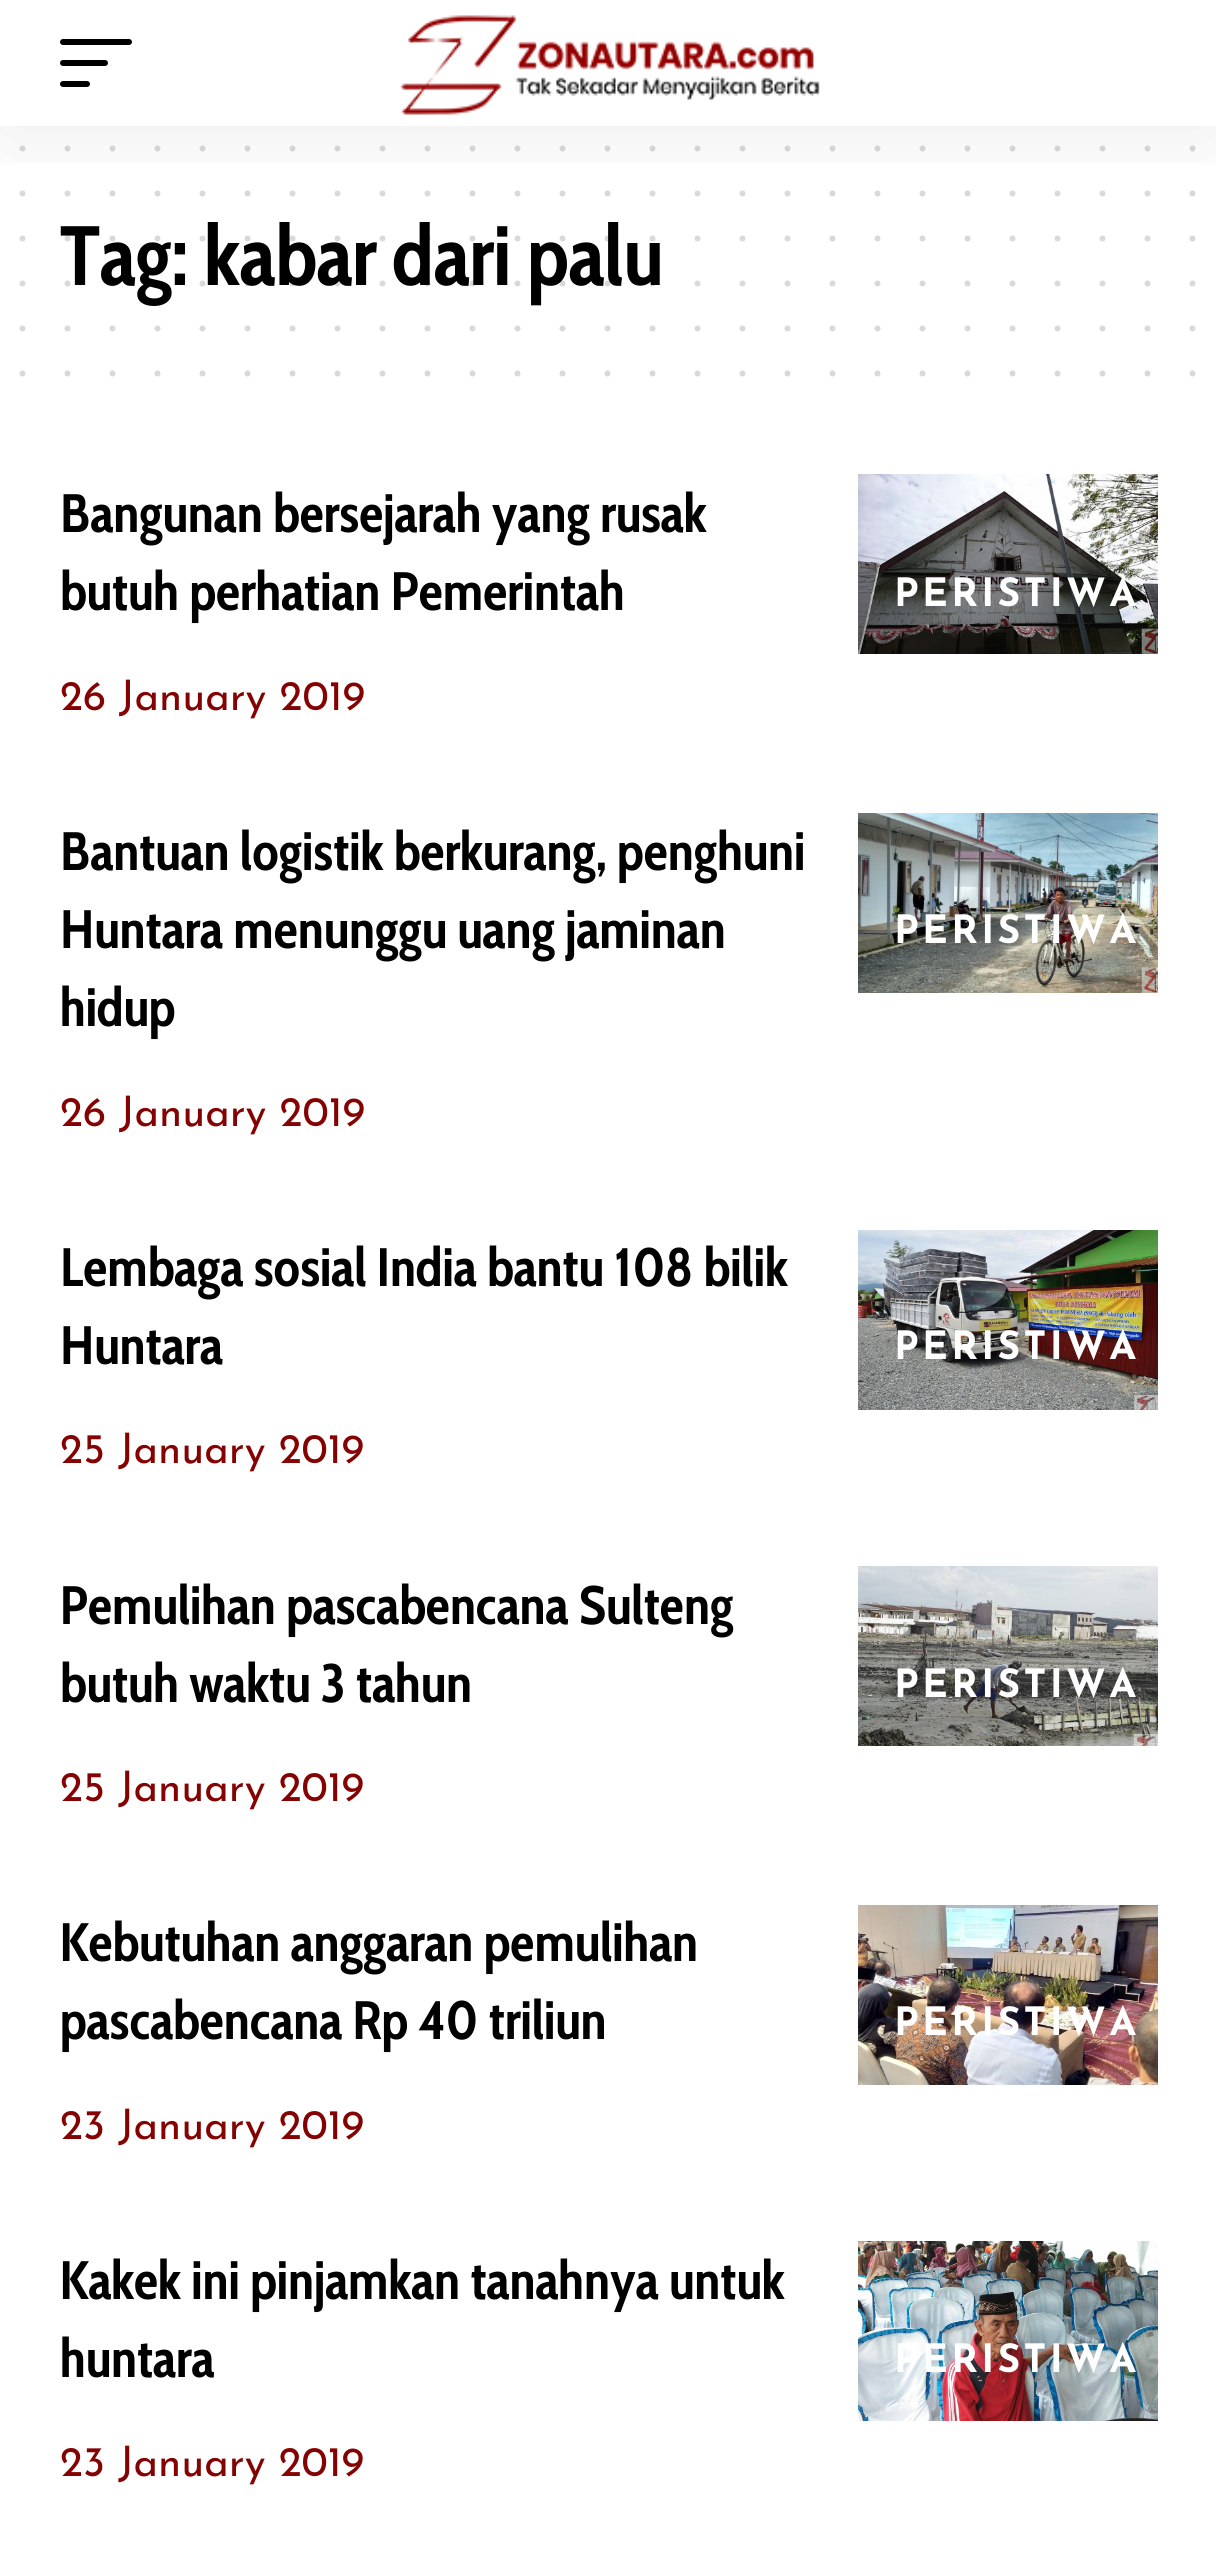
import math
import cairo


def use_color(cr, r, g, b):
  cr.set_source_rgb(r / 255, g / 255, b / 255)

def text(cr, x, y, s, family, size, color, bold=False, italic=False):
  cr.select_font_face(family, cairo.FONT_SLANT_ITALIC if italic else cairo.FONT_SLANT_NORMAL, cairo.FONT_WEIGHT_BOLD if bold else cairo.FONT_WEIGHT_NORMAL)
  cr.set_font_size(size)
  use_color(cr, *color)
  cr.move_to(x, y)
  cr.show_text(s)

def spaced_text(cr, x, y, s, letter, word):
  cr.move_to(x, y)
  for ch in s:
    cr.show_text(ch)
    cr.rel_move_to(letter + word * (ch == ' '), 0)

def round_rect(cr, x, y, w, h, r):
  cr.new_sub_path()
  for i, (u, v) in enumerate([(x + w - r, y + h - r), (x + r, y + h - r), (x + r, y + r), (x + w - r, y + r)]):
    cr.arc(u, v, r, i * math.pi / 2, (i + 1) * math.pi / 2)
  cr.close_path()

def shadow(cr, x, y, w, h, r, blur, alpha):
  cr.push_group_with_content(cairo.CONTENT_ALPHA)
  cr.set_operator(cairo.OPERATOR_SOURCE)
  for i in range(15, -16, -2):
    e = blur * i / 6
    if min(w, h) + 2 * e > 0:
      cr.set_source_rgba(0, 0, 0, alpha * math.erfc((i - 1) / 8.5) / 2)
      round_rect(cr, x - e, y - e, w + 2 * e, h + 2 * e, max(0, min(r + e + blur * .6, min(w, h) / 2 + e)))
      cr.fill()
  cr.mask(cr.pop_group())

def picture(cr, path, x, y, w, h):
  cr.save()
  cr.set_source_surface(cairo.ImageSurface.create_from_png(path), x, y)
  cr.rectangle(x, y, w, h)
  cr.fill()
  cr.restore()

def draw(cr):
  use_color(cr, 255, 255, 255)
  cr.paint()
  cr.new_path()
  cr.move_to(22.5, 148.5)
  cr.line_to(1193.1, 148.5)
  use_color(cr, 217, 217, 217)
  cr.set_line_width(6)
  cr.set_line_cap(cairo.LINE_CAP_ROUND)
  cr.set_dash([0, 45])
  cr.stroke()
  cr.new_path()
  cr.move_to(22.5, 193.5)
  cr.line_to(1193.1, 193.5)
  cr.stroke()
  cr.new_path()
  cr.move_to(22.5, 328.5)
  cr.line_to(1193.1, 328.5)
  cr.stroke()
  cr.new_path()
  cr.move_to(22.5, 373.5)
  cr.line_to(1193.1, 373.5)
  cr.stroke()
  picture(cr, "img_02.png", 858, 474, 300, 180)
  picture(cr, "img_03.png", 858, 813, 300, 180)
  picture(cr, "img_04.png", 858, 1230, 300, 180)
  picture(cr, "img_05.png", 858, 1566, 300, 180)
  picture(cr, "img_06.png", 858, 1905, 300, 180)
  picture(cr, "img_07.png", 858, 2241, 300, 180)
  text(cr, 60, 285, "Tag: kabar dari palu", "Cabin Condensed", 84, (0, 0, 0), bold=True)
  cr.new_path()
  cr.move_to(22.5, 238.5)
  cr.line_to(1193.1, 238.5)
  cr.set_source_rgba(0, 0, 0, 0.15)
  cr.stroke()
  cr.save()
  cr.rectangle(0, 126, 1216, 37)
  cr.clip()
  use_color(cr, 0, 0, 0)
  shadow(cr, 0, 12, 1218, 126, 0, 45, 0.07)
  cr.restore()
  use_color(cr, 0, 0, 0)
  round_rect(cr, 60, 81, 30, 6, 3)
  cr.fill()
  round_rect(cr, 60, 60, 48, 6, 3)
  cr.fill()
  round_rect(cr, 60, 39, 72, 6, 3)
  cr.fill()
  picture(cr, "img_01.png", 400, 15, 420, 100)
  cr.new_path()
  cr.move_to(22.5, 283.5)
  cr.line_to(1193.1, 283.5)
  cr.set_source_rgba(0, 0, 0, 0.15)
  cr.stroke()
  text(cr, 60, 532, "Bangunan bersejarah yang rusak", "Cabin Condensed", 54, (0, 0, 0), bold=True)
  text(cr, 60, 610, "butuh perhatian Pemerintah", "Cabin Condensed", 54, (0, 0, 0), bold=True)
  text(cr, 60, 710, "26 January 2019", "Josefin Sans", 42, (132, 2, 2))
  cr.select_font_face("Josefin Sans", cairo.FONT_SLANT_NORMAL, cairo.FONT_WEIGHT_BOLD)
  cr.set_font_size(39)
  use_color(cr, 255, 255, 255)
  spaced_text(cr, 894, 606, "PERISTIWA", 3.25, 0)
  text(cr, 60, 870, "Bantuan logistik berkurang, penghuni", "Cabin Condensed", 54, (0, 0, 0), bold=True)
  text(cr, 60, 948, "Huntara menunggu uang jaminan", "Cabin Condensed", 54, (0, 0, 0), bold=True)
  text(cr, 60, 1026, "hidup", "Cabin Condensed", 54, (0, 0, 0), bold=True)
  text(cr, 60, 1126, "26 January 2019", "Josefin Sans", 42, (132, 2, 2))
  cr.select_font_face("Josefin Sans", cairo.FONT_SLANT_NORMAL, cairo.FONT_WEIGHT_BOLD)
  cr.set_font_size(39)
  use_color(cr, 255, 255, 255)
  spaced_text(cr, 894, 943, "PERISTIWA", 3.25, 0)
  text(cr, 60, 1286, "Lembaga sosial India bantu 108 bilik", "Cabin Condensed", 54, (0, 0, 0), bold=True)
  text(cr, 60, 1364, "Huntara", "Cabin Condensed", 54, (0, 0, 0), bold=True)
  text(cr, 60, 1463, "25 January 2019", "Josefin Sans", 42, (132, 2, 2))
  cr.select_font_face("Josefin Sans", cairo.FONT_SLANT_NORMAL, cairo.FONT_WEIGHT_BOLD)
  cr.set_font_size(39)
  use_color(cr, 255, 255, 255)
  spaced_text(cr, 894, 1359, "PERISTIWA", 3.25, 0)
  text(cr, 60, 1624, "Pemulihan pascabencana Sulteng", "Cabin Condensed", 54, (0, 0, 0), bold=True)
  text(cr, 60, 1702, "butuh waktu 3 tahun", "Cabin Condensed", 54, (0, 0, 0), bold=True)
  text(cr, 60, 1801, "25 January 2019", "Josefin Sans", 42, (132, 2, 2))
  cr.select_font_face("Josefin Sans", cairo.FONT_SLANT_NORMAL, cairo.FONT_WEIGHT_BOLD)
  cr.set_font_size(39)
  use_color(cr, 255, 255, 255)
  spaced_text(cr, 894, 1697, "PERISTIWA", 3.25, 0)
  text(cr, 60, 1961, "Kebutuhan anggaran pemulihan", "Cabin Condensed", 54, (0, 0, 0), bold=True)
  text(cr, 60, 2039, "pascabencana Rp 40 triliun", "Cabin Condensed", 54, (0, 0, 0), bold=True)
  text(cr, 60, 2139, "23 January 2019", "Josefin Sans", 42, (132, 2, 2))
  cr.select_font_face("Josefin Sans", cairo.FONT_SLANT_NORMAL, cairo.FONT_WEIGHT_BOLD)
  cr.set_font_size(39)
  use_color(cr, 255, 255, 255)
  spaced_text(cr, 894, 2035, "PERISTIWA", 3.25, 0)
  text(cr, 60, 2299, "Kakek ini pinjamkan tanahnya untuk", "Cabin Condensed", 54, (0, 0, 0), bold=True)
  text(cr, 60, 2377, "huntara", "Cabin Condensed", 54, (0, 0, 0), bold=True)
  text(cr, 60, 2476, "23 January 2019", "Josefin Sans", 42, (132, 2, 2))
  cr.select_font_face("Josefin Sans", cairo.FONT_SLANT_NORMAL, cairo.FONT_WEIGHT_BOLD)
  cr.set_font_size(39)
  use_color(cr, 255, 255, 255)
  spaced_text(cr, 894, 2372, "PERISTIWA", 3.25, 0)


surface = cairo.ImageSurface(cairo.FORMAT_RGB24, 1216, 2571)
cr = cairo.Context(surface)
options = cairo.FontOptions()
options.set_hint_metrics(cairo.HINT_METRICS_OFF)
options.set_hint_style(cairo.HINT_STYLE_NONE)
cr.set_font_options(options)
cr.set_miter_limit(4)
draw(cr)
surface.write_to_png("out.png")
